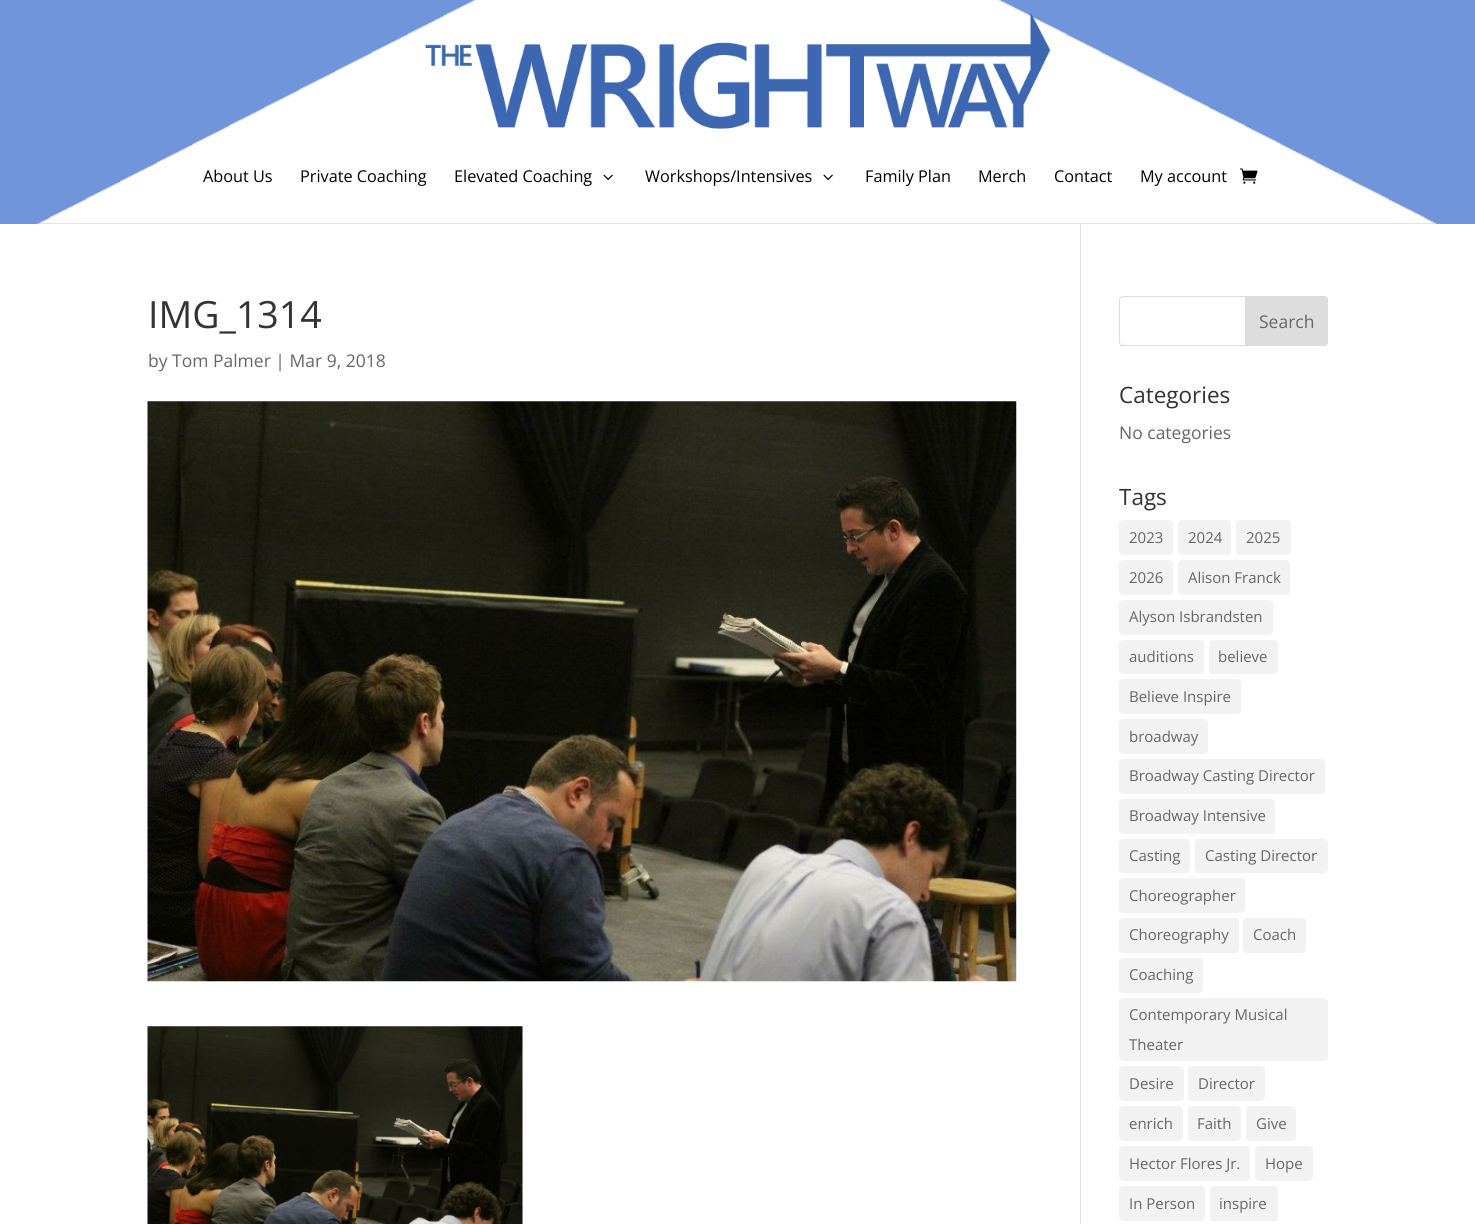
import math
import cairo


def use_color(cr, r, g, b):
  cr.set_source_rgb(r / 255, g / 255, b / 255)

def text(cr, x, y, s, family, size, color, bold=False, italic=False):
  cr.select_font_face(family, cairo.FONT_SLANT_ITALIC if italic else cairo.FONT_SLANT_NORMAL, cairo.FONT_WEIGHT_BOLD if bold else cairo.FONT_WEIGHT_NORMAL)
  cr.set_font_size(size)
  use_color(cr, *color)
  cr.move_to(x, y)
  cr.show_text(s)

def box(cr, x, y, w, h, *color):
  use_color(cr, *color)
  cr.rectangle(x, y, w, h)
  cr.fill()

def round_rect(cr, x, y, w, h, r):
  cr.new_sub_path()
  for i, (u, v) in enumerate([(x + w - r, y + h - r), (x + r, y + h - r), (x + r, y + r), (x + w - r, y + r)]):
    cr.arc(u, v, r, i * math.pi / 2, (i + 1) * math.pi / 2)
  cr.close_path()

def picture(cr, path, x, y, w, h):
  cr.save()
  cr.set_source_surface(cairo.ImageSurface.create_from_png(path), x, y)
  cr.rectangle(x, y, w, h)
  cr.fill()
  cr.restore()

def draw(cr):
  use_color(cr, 112, 149, 219)
  cr.paint()
  picture(cr, "img_01.png", 37, 0, 1401, 224)
  picture(cr, "img_02.png", 425, 12, 625, 117)
  picture(cr, "img_03.png", 603, 174, 10, 6)
  picture(cr, "img_03.png", 823, 174, 10, 6)
  picture(cr, "img_04.png", 1240, 168, 18, 16)
  box(cr, 0, 224, 1475, 1000, 255, 255, 255)
  box(cr, 1080, 224, 1, 1000, 226, 226, 226)
  picture(cr, "img_05.png", 147, 401, 870, 581)
  picture(cr, "img_06.png", 147, 1026, 376, 198)
  round_rect(cr, 1119.5, 296.5, 208, 49, 3.5)
  use_color(cr, 221, 221, 221)
  cr.set_line_width(1)
  cr.stroke()
  cr.new_path()
  cr.move_to(1245.5, 296.5)
  cr.line_to(1324, 296.5)
  cr.curve_to(1326, 296.5, 1327.5, 298, 1327.5, 300)
  cr.line_to(1327.5, 342)
  cr.curve_to(1327.5, 344, 1326, 345.5, 1324, 345.5)
  cr.line_to(1245.5, 345.5)
  cr.close_path()
  cr.fill_preserve()
  cr.stroke()
  use_color(cr, 242, 242, 242)
  round_rect(cr, 1119, 520, 54, 35, 4)
  cr.fill()
  round_rect(cr, 1178, 520, 53, 35, 4)
  cr.fill()
  round_rect(cr, 1236, 520, 55, 35, 4)
  cr.fill()
  round_rect(cr, 1119, 560, 54, 35, 4)
  cr.fill()
  round_rect(cr, 1178, 560, 112, 35, 4)
  cr.fill()
  round_rect(cr, 1119, 600, 154, 35, 4)
  cr.fill()
  round_rect(cr, 1119, 640, 85, 34, 4)
  cr.fill()
  round_rect(cr, 1209, 640, 69, 34, 4)
  cr.fill()
  round_rect(cr, 1119, 679, 122, 35, 4)
  cr.fill()
  round_rect(cr, 1119, 719, 89, 35, 4)
  cr.fill()
  round_rect(cr, 1119, 759, 206, 35, 4)
  cr.fill()
  round_rect(cr, 1119, 799, 156, 35, 4)
  cr.fill()
  round_rect(cr, 1119, 839, 71, 34, 4)
  cr.fill()
  round_rect(cr, 1195, 839, 133, 34, 4)
  cr.fill()
  round_rect(cr, 1119, 878, 126, 35, 4)
  cr.fill()
  round_rect(cr, 1119, 918, 120, 35, 4)
  cr.fill()
  round_rect(cr, 1243, 918, 63, 35, 4)
  cr.fill()
  round_rect(cr, 1119, 958, 84, 35, 4)
  cr.fill()
  round_rect(cr, 1119, 998, 209, 63, 4)
  cr.fill()
  round_rect(cr, 1119, 1066, 65, 35, 4)
  cr.fill()
  round_rect(cr, 1188, 1066, 77, 35, 4)
  cr.fill()
  round_rect(cr, 1119, 1106, 64, 35, 4)
  cr.fill()
  round_rect(cr, 1188, 1106, 53, 35, 4)
  cr.fill()
  round_rect(cr, 1246, 1106, 50, 35, 4)
  cr.fill()
  round_rect(cr, 1119, 1146, 131, 35, 4)
  cr.fill()
  round_rect(cr, 1255, 1146, 58, 35, 4)
  cr.fill()
  round_rect(cr, 1119, 1186, 86, 35, 4)
  cr.fill()
  round_rect(cr, 1210, 1186, 68, 35, 4)
  cr.fill()
  text(cr, 203, 182, "About Us", "Open Sans", 16.25, (0, 0, 0))
  text(cr, 300, 182, "Private Coaching", "Open Sans", 16.25, (0, 0, 0))
  text(cr, 454, 182, "Elevated Coaching", "Open Sans", 16.25, (0, 0, 0))
  text(cr, 645, 182, "Workshops/Intensives", "Open Sans", 16.25, (0, 0, 0))
  text(cr, 865, 182, "Family Plan", "Open Sans", 16.25, (0, 0, 0))
  text(cr, 978, 182, "Merch", "Open Sans", 16.25, (0, 0, 0))
  text(cr, 1054, 182, "Contact", "Open Sans", 16.25, (0, 0, 0))
  text(cr, 1140, 182, "My account", "Open Sans", 16.25, (0, 0, 0))
  text(cr, 148, 328, "IMG_1314", "Open Sans", 37.5, (51, 51, 51))
  text(cr, 148, 367, "by Tom Palmer | Mar 9, 2018", "Open Sans", 17.5, (102, 102, 102))
  text(cr, 1259, 328, "Search", "Open Sans", 17.5, (102, 102, 102))
  text(cr, 1119, 403, "Categories", "Open Sans", 22.5, (51, 51, 51))
  text(cr, 1119, 439, "No categories", "Open Sans", 17.5, (102, 102, 102))
  text(cr, 1119, 505, "Tags", "Open Sans", 22.5, (51, 51, 51))
  text(cr, 1129, 543, "2023", "Open Sans", 15, (102, 102, 102))
  text(cr, 1188, 543, "2024", "Open Sans", 15, (102, 102, 102))
  text(cr, 1246, 543, "2025", "Open Sans", 15, (102, 102, 102))
  text(cr, 1129, 583, "2026", "Open Sans", 15, (102, 102, 102))
  text(cr, 1188, 583, "Alison Franck", "Open Sans", 15, (102, 102, 102))
  text(cr, 1129, 622, "Alyson Isbrandsten", "Open Sans", 15, (102, 102, 102))
  text(cr, 1129, 662, "auditions", "Open Sans", 15, (102, 102, 102))
  text(cr, 1218, 662, "believe", "Open Sans", 15, (102, 102, 102))
  text(cr, 1129, 702, "Believe Inspire", "Open Sans", 15, (102, 102, 102))
  text(cr, 1129, 742, "broadway", "Open Sans", 15, (102, 102, 102))
  text(cr, 1129, 781, "Broadway Casting Director", "Open Sans", 15, (102, 102, 102))
  text(cr, 1129, 821, "Broadway Intensive", "Open Sans", 15, (102, 102, 102))
  text(cr, 1129, 861, "Casting", "Open Sans", 15, (102, 102, 102))
  text(cr, 1205, 861, "Casting Director", "Open Sans", 15, (102, 102, 102))
  text(cr, 1129, 901, "Choreographer", "Open Sans", 15, (102, 102, 102))
  text(cr, 1129, 940, "Choreography", "Open Sans", 15, (102, 102, 102))
  text(cr, 1253, 940, "Coach", "Open Sans", 15, (102, 102, 102))
  text(cr, 1129, 980, "Coaching", "Open Sans", 15, (102, 102, 102))
  text(cr, 1129, 1020, "Contemporary Musical", "Open Sans", 15, (102, 102, 102))
  text(cr, 1129, 1050, "Theater", "Open Sans", 15, (102, 102, 102))
  text(cr, 1129, 1089, "Desire", "Open Sans", 15, (102, 102, 102))
  text(cr, 1198, 1089, "Director", "Open Sans", 15, (102, 102, 102))
  text(cr, 1129, 1129, "enrich", "Open Sans", 15, (102, 102, 102))
  text(cr, 1197, 1129, "Faith", "Open Sans", 15, (102, 102, 102))
  text(cr, 1256, 1129, "Give", "Open Sans", 15, (102, 102, 102))
  text(cr, 1129, 1169, "Hector Flores Jr.", "Open Sans", 15, (102, 102, 102))
  text(cr, 1265, 1169, "Hope", "Open Sans", 15, (102, 102, 102))
  text(cr, 1129, 1209, "In Person", "Open Sans", 15, (102, 102, 102))
  text(cr, 1219, 1209, "inspire", "Open Sans", 15, (102, 102, 102))


surface = cairo.ImageSurface(cairo.FORMAT_RGB24, 1475, 1224)
cr = cairo.Context(surface)
options = cairo.FontOptions()
options.set_hint_metrics(cairo.HINT_METRICS_OFF)
options.set_hint_style(cairo.HINT_STYLE_NONE)
cr.set_font_options(options)
cr.set_miter_limit(4)
draw(cr)
surface.write_to_png("out.png")
